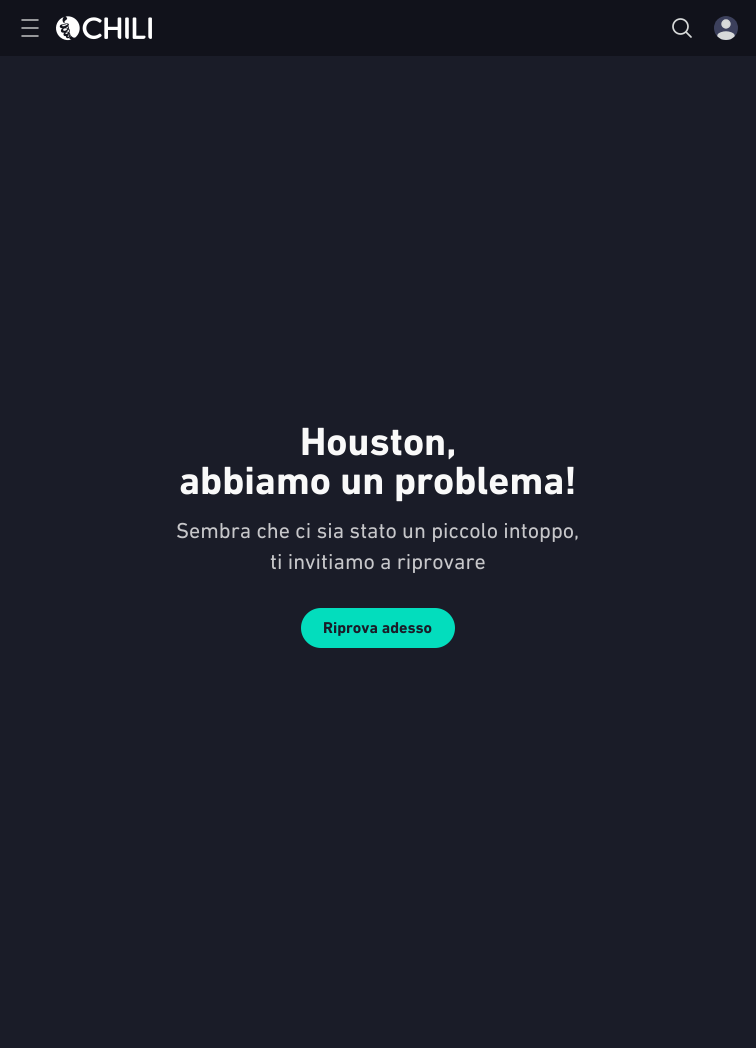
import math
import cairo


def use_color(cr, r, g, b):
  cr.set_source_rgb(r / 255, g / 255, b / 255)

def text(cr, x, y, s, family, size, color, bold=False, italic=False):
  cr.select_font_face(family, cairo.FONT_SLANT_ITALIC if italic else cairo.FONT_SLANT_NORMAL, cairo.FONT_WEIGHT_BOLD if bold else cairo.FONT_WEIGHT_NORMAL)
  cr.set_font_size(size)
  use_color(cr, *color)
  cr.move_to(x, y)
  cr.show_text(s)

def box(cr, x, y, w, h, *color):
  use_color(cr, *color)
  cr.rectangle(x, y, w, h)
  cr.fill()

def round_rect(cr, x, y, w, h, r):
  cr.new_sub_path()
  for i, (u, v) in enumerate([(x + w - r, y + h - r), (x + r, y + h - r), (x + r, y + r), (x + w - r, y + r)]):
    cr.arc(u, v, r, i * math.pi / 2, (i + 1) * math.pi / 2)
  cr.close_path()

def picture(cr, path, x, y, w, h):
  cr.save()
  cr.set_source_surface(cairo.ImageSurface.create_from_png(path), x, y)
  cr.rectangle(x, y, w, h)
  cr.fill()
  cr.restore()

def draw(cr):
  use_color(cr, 26, 28, 40)
  cr.paint()
  box(cr, 0, 0, 756, 56, 17, 18, 27)
  cr.new_path()
  cr.move_to(22, 28)
  cr.line_to(38, 28)
  cr.move_to(22, 36)
  cr.line_to(38, 36)
  cr.move_to(22, 20)
  cr.line_to(38, 20)
  use_color(cr, 216, 218, 218)
  cr.set_line_width(1.4)
  cr.set_line_cap(cairo.LINE_CAP_ROUND)
  cr.stroke()
  picture(cr, "img_01.png", 56, 16, 96, 25)
  cr.new_path()
  cr.move_to(691, 37)
  cr.line_to(686.5, 32.5)
  cr.set_line_width(1.7)
  cr.stroke()
  cr.arc(680.5, 26.5, 7.5, 0, 2 * math.pi)
  cr.set_line_cap(cairo.LINE_CAP_BUTT)
  cr.stroke()
  picture(cr, "img_02.png", 714, 16, 24, 24)
  use_color(cr, 3, 221, 189)
  round_rect(cr, 301, 608, 154, 40, 20)
  cr.fill()
  text(cr, 300, 455, "Houston,", "DIN Next", 40, (249, 249, 249), bold=True)
  text(cr, 179, 494, "abbiamo un problema!", "DIN Next", 40, (249, 249, 249), bold=True)
  text(cr, 176, 538, "Sembra che ci sia stato un piccolo intoppo,", "DIN Next", 22, (199, 199, 202))
  text(cr, 270, 569, "ti invitiamo a riprovare", "DIN Next", 22, (199, 199, 202))
  text(cr, 323, 633, "Riprova adesso", "DIN Next", 16, (26, 28, 40), bold=True)


surface = cairo.ImageSurface(cairo.FORMAT_RGB24, 756, 1048)
cr = cairo.Context(surface)
options = cairo.FontOptions()
options.set_hint_metrics(cairo.HINT_METRICS_OFF)
options.set_hint_style(cairo.HINT_STYLE_NONE)
cr.set_font_options(options)
cr.set_miter_limit(4)
draw(cr)
surface.write_to_png("out.png")
